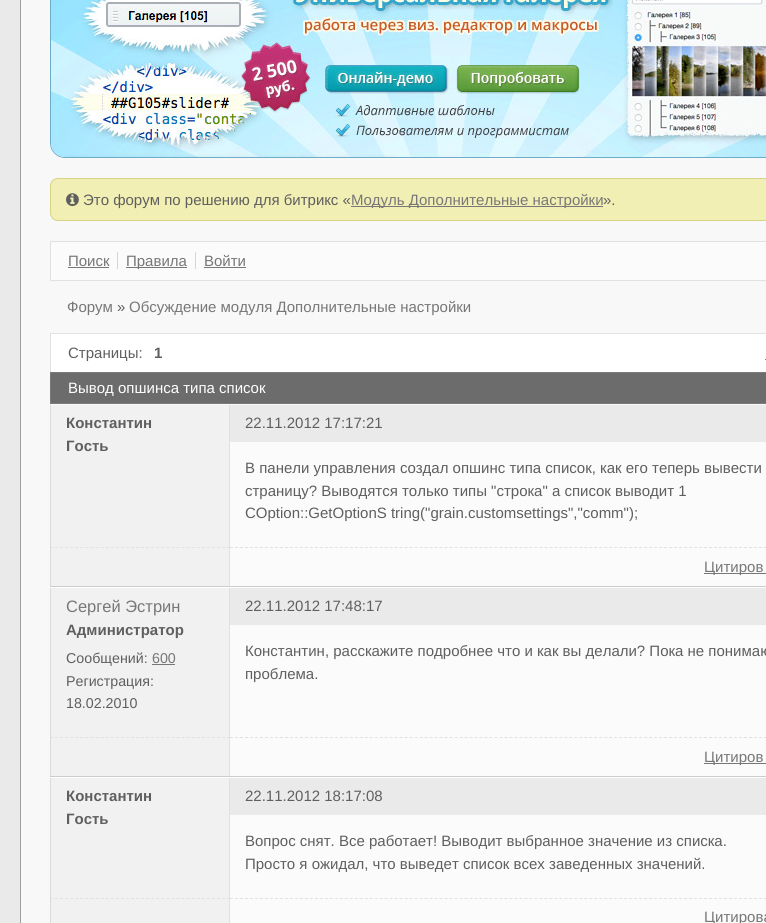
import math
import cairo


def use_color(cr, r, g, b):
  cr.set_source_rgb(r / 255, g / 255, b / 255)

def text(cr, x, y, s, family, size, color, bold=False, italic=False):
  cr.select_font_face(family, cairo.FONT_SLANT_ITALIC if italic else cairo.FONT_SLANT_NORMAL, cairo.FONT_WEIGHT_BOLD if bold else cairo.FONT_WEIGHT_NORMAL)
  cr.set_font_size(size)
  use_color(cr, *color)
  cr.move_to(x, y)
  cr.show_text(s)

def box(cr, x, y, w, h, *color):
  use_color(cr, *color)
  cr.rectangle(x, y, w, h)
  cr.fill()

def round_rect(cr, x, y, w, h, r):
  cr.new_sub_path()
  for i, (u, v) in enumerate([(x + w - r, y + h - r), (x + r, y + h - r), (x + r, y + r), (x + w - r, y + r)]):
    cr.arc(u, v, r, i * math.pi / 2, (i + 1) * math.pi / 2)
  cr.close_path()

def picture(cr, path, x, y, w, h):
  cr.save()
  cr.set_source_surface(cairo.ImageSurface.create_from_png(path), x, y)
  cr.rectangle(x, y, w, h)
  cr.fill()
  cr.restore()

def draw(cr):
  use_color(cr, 234, 234, 234)
  cr.paint()
  box(cr, 21, 0, 745, 923, 248, 248, 248)
  box(cr, 20, 0, 1, 923, 158, 158, 158)
  round_rect(cr, 50.5, -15.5, 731, 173, 14.5)
  use_color(cr, 109, 173, 200)
  cr.set_line_width(1)
  cr.stroke()
  picture(cr, "img_01.png", 51, 0, 715, 157)
  use_color(cr, 242, 239, 180)
  round_rect(cr, 50.5, 178.5, 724, 42, 7.5)
  cr.fill_preserve()
  use_color(cr, 215, 211, 132)
  cr.stroke()
  picture(cr, "img_02.png", 66, 193, 13, 14)
  box(cr, 351, 206, 252, 1, 119, 119, 119)
  use_color(cr, 251, 251, 251)
  cr.rectangle(50.5, 241.5, 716, 39)
  cr.fill_preserve()
  use_color(cr, 225, 225, 225)
  cr.stroke()
  box(cr, 117, 252, 1, 17, 213, 213, 213)
  box(cr, 68, 267, 41, 1, 119, 119, 119)
  box(cr, 195, 252, 1, 17, 213, 213, 213)
  box(cr, 126, 267, 61, 1, 119, 119, 119)
  box(cr, 204, 267, 42, 1, 119, 119, 119)
  box(cr, 51, 334, 715, 38, 255, 255, 255)
  box(cr, 50, 333, 716, 1, 225, 225, 225)
  box(cr, 50, 333, 1, 39, 225, 225, 225)
  box(cr, 765, 359, 1, 1, 119, 119, 119)
  use_color(cr, 108, 108, 108)
  cr.rectangle(50.5, 372.5, 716, 31)
  cr.fill_preserve()
  use_color(cr, 122, 122, 122)
  cr.stroke()
  box(cr, 50, 586, 716, 1, 204, 204, 204)
  box(cr, 51, 405, 178, 181, 241, 241, 241)
  box(cr, 229, 405, 1, 142, 225, 225, 225)
  box(cr, 50, 405, 1, 142, 219, 219, 219)
  box(cr, 230, 442, 536, 144, 251, 251, 251)
  box(cr, 230, 405, 536, 37, 234, 234, 234)
  cr.new_path()
  cr.move_to(50, 547.5)
  cr.line_to(230, 547.5)
  use_color(cr, 225, 225, 225)
  cr.set_dash([3, 2.06])
  cr.stroke()
  box(cr, 229, 547, 1, 39, 225, 225, 225)
  box(cr, 50, 547, 1, 39, 219, 219, 219)
  cr.new_path()
  cr.move_to(230, 547.5)
  cr.line_to(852, 547.5)
  use_color(cr, 225, 225, 225)
  cr.set_dash([3, 1.99])
  cr.stroke()
  box(cr, 704, 573, 62, 1, 119, 119, 119)
  box(cr, 50, 587, 716, 1, 255, 255, 255)
  box(cr, 50, 776, 716, 1, 204, 204, 204)
  box(cr, 51, 588, 178, 188, 241, 241, 241)
  box(cr, 229, 588, 1, 149, 225, 225, 225)
  box(cr, 50, 588, 1, 149, 219, 219, 219)
  box(cr, 152, 664, 23, 1, 119, 119, 119)
  box(cr, 230, 625, 536, 151, 251, 251, 251)
  box(cr, 230, 588, 536, 37, 234, 234, 234)
  cr.new_path()
  cr.move_to(50, 737.5)
  cr.line_to(230, 737.5)
  use_color(cr, 225, 225, 225)
  cr.set_dash([3, 2.06])
  cr.stroke()
  box(cr, 229, 737, 1, 39, 225, 225, 225)
  box(cr, 50, 737, 1, 39, 219, 219, 219)
  cr.new_path()
  cr.move_to(230, 737.5)
  cr.line_to(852, 737.5)
  use_color(cr, 225, 225, 225)
  cr.set_dash([3, 1.99])
  cr.stroke()
  box(cr, 704, 763, 62, 1, 119, 119, 119)
  box(cr, 50, 777, 716, 1, 255, 255, 255)
  box(cr, 51, 778, 178, 145, 241, 241, 241)
  box(cr, 229, 778, 1, 120, 225, 225, 225)
  box(cr, 50, 778, 1, 120, 219, 219, 219)
  box(cr, 230, 815, 536, 108, 251, 251, 251)
  box(cr, 230, 778, 536, 37, 234, 234, 234)
  cr.new_path()
  cr.move_to(50, 898.5)
  cr.line_to(230, 898.5)
  use_color(cr, 225, 225, 225)
  cr.set_dash([3, 2.06])
  cr.stroke()
  box(cr, 229, 898, 1, 25, 225, 225, 225)
  box(cr, 50, 898, 1, 25, 219, 219, 219)
  cr.new_path()
  cr.move_to(230, 898.5)
  cr.line_to(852, 898.5)
  use_color(cr, 225, 225, 225)
  cr.set_dash([3, 1.99])
  cr.stroke()
  text(cr, 83, 205, "Это форум по решению для битрикс «", "Liberation Sans", 15, (95, 95, 95))
  text(cr, 351, 205, "Модуль Дополнительные настройки", "Liberation Sans", 15, (119, 119, 119))
  text(cr, 603, 205, "».", "Liberation Sans", 15, (95, 95, 95))
  text(cr, 68, 266, "Поиск", "Liberation Sans", 15, (119, 119, 119))
  text(cr, 126, 266, "Правила", "Liberation Sans", 15, (119, 119, 119))
  text(cr, 204, 266, "Войти", "Liberation Sans", 15, (119, 119, 119))
  text(cr, 67, 312, "Форум", "Liberation Sans", 15, (119, 119, 119))
  text(cr, 117, 312, "»", "Liberation Sans", 15, (95, 95, 95))
  text(cr, 129, 312, "Обсуждение модуля Дополнительные настройки", "Liberation Sans", 15, (119, 119, 119))
  text(cr, 68, 358, "Страницы:", "Liberation Sans", 15, (95, 95, 95))
  text(cr, 154, 358, "1", "Liberation Sans", 15, (95, 95, 95), bold=True)
  text(cr, 68, 393, "Вывод опшинса типа список", "Liberation Sans", 15, (255, 255, 255))
  text(cr, 66, 428, "Константин", "Liberation Sans", 15, (95, 95, 95), bold=True)
  text(cr, 66, 451, "Гость", "Liberation Sans", 15, (95, 95, 95), bold=True)
  text(cr, 245, 428, "22.11.2012 17:17:21", "Liberation Sans", 15, (95, 95, 95))
  text(cr, 245, 473, "В панели управления создал опшинс типа список, как его теперь вывести", "Liberation Sans", 15, (95, 95, 95))
  text(cr, 245, 496, "страницу? Выводятся только типы \"строка\" а список выводит 1", "Liberation Sans", 15, (95, 95, 95))
  text(cr, 245, 518, "COption::GetOptionS tring(\"grain.customsettings\",\"comm\");", "Liberation Sans", 15, (95, 95, 95))
  text(cr, 704, 572, "Цитиров", "Liberation Sans", 15, (119, 119, 119))
  text(cr, 66, 612, "Сергей Эстрин", "Liberation Sans", 16.5, (119, 119, 119))
  text(cr, 66, 635, "Администратор", "Liberation Sans", 15, (95, 95, 95), bold=True)
  text(cr, 66, 663, "Сообщений:", "Liberation Sans", 14.25, (95, 95, 95))
  text(cr, 152, 663, "600", "Liberation Sans", 14.25, (119, 119, 119))
  text(cr, 66, 686, "Регистрация:", "Liberation Sans", 14.25, (95, 95, 95))
  text(cr, 66, 708, "18.02.2010", "Liberation Sans", 14.25, (95, 95, 95))
  text(cr, 245, 611, "22.11.2012 17:48:17", "Liberation Sans", 15, (95, 95, 95))
  text(cr, 245, 656, "Константин, расскажите подробнее что и как вы делали? Пока не понимаю", "Liberation Sans", 15, (95, 95, 95))
  text(cr, 245, 679, "проблема.", "Liberation Sans", 15, (95, 95, 95))
  text(cr, 704, 762, "Цитиров", "Liberation Sans", 15, (119, 119, 119))
  text(cr, 66, 801, "Константин", "Liberation Sans", 15, (95, 95, 95), bold=True)
  text(cr, 66, 824, "Гость", "Liberation Sans", 15, (95, 95, 95), bold=True)
  text(cr, 245, 801, "22.11.2012 18:17:08", "Liberation Sans", 15, (95, 95, 95))
  text(cr, 245, 846, "Вопрос снят. Все работает! Выводит выбранное значение из списка.", "Liberation Sans", 15, (95, 95, 95))
  text(cr, 245, 869, "Просто я ожидал, что выведет список всех заведенных значений.", "Liberation Sans", 15, (95, 95, 95))
  text(cr, 704, 922, "Цитирова", "Liberation Sans", 15, (119, 119, 119))


surface = cairo.ImageSurface(cairo.FORMAT_RGB24, 766, 923)
cr = cairo.Context(surface)
options = cairo.FontOptions()
options.set_hint_metrics(cairo.HINT_METRICS_OFF)
options.set_hint_style(cairo.HINT_STYLE_NONE)
cr.set_font_options(options)
cr.set_miter_limit(4)
draw(cr)
surface.write_to_png("out.png")
